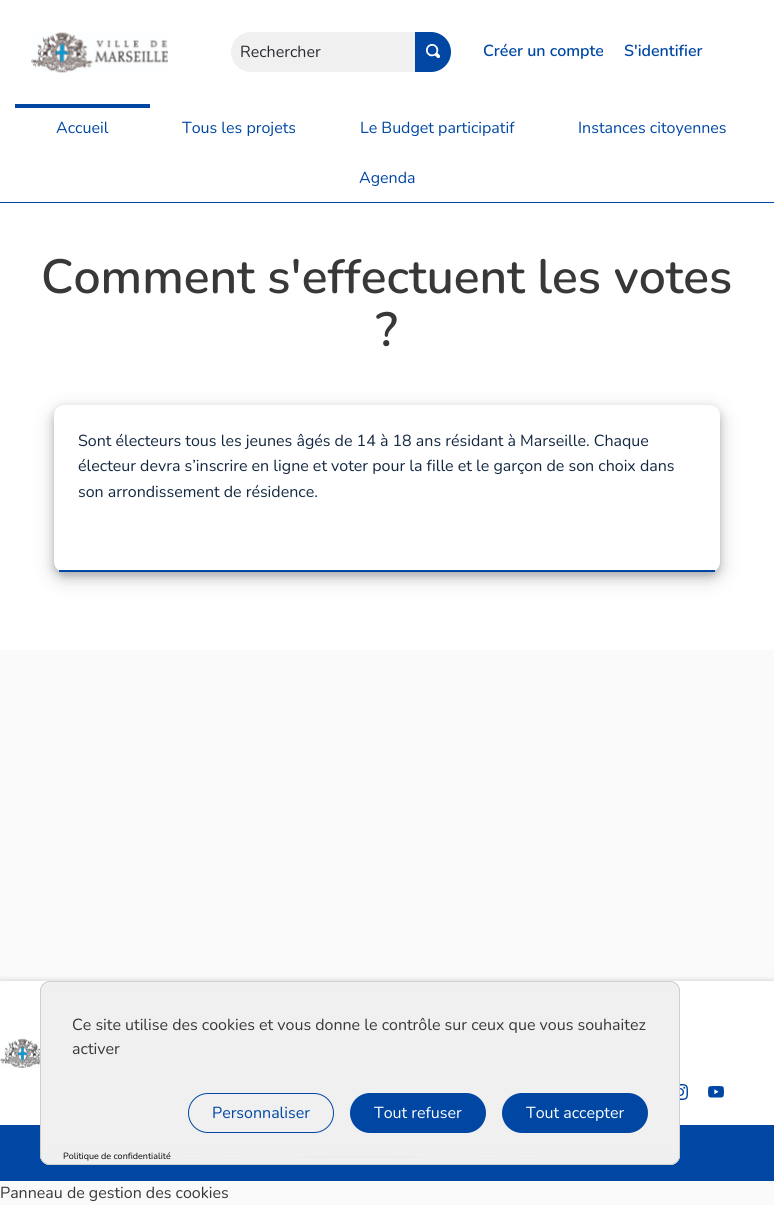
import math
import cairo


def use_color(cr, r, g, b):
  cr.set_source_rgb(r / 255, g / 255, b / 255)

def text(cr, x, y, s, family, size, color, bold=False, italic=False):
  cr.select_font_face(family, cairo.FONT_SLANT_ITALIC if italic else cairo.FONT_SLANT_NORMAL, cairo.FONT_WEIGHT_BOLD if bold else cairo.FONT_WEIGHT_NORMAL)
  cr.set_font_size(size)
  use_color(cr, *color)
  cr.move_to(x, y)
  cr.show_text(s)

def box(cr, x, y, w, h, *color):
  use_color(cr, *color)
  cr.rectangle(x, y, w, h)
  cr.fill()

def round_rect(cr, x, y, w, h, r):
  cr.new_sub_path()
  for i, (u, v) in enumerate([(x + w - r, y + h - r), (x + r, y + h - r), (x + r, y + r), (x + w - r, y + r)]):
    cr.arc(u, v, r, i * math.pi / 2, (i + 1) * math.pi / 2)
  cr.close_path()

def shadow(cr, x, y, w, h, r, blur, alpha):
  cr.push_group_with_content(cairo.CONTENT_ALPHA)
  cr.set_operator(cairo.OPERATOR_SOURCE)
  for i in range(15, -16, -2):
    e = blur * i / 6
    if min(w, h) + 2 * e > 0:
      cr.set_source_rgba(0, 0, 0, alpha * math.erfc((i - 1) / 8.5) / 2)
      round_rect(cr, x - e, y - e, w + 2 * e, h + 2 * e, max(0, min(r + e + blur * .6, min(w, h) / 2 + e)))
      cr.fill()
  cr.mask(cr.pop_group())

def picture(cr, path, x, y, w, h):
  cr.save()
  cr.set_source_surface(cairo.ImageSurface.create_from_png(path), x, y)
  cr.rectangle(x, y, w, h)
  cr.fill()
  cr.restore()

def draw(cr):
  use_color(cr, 250, 250, 250)
  cr.paint()
  box(cr, 0, 0, 774, 202, 255, 255, 255)
  picture(cr, "img_01.png", 31, 32, 137, 41)
  use_color(cr, 240, 240, 240)
  cr.new_path()
  cr.move_to(251, 32)
  cr.line_to(415, 32)
  cr.line_to(415, 72)
  cr.line_to(251, 72)
  cr.curve_to(240, 72, 231, 63, 231, 52)
  cr.curve_to(231, 41, 240, 32, 251, 32)
  cr.close_path()
  cr.fill()
  use_color(cr, 0, 71, 163)
  cr.new_path()
  cr.move_to(415, 32)
  cr.line_to(431, 32)
  cr.curve_to(442, 32, 451, 41, 451, 52)
  cr.curve_to(451, 63, 442, 72, 431, 72)
  cr.line_to(415, 72)
  cr.close_path()
  cr.fill()
  picture(cr, "img_02.png", 426, 44, 14, 14)
  box(cr, 0, 202, 774, 1, 0, 71, 163)
  box(cr, 15, 104, 135, 4, 0, 71, 163)
  box(cr, 0, 203, 774, 447, 255, 255, 255)
  use_color(cr, 0, 0, 0)
  shadow(cr, 54, 411, 666, 167, 10, 10, 0.19)
  shadow(cr, 54, 409, 666, 167, 10, 4, 0.2)
  use_color(cr, 255, 255, 255)
  round_rect(cr, 54, 405, 666, 167, 10)
  cr.fill()
  box(cr, 59, 570, 656, 2, 0, 71, 163)
  box(cr, 0, 1125, 774, 56, 0, 71, 163)
  use_color(cr, 0, 0, 0)
  shadow(cr, 0, 979, 774, 144, 0, 2, 0.1)
  box(cr, 0, 981, 774, 144, 255, 255, 255)
  picture(cr, "img_03.png", 0, 1038, 40, 30)
  picture(cr, "img_04.png", 680, 1084, 8, 16)
  picture(cr, "img_05.png", 708, 1086, 16, 12)
  use_color(cr, 240, 240, 240)
  round_rect(cr, 40, 981, 640, 184, 10)
  cr.fill()
  gradient = cairo.RadialGradient(0, 0, 0, 0, 0, 1)
  gradient.set_matrix(cairo.Matrix(1 / 320, 0, 0, 1 / 10, -1 * 360 / 320, -1 * 1165 / 10))
  gradient.add_color_stop_rgba(0, 0.133, 0.133, 0.133, 0.5)
  gradient.add_color_stop_rgba(1, 0.133, 0.133, 0.133, 0)
  cr.set_source(gradient)
  cr.rectangle(136, 1155, 448, 4)
  cr.fill()
  gradient = cairo.LinearGradient(360, 1147, 360, 1165)
  gradient.add_color_stop_rgba(0, 0.941, 0.941, 0.941, 0)
  gradient.add_color_stop_rgba(0.66, 0.941, 0.941, 0.941, 1)
  cr.set_source(gradient)
  cr.new_path()
  cr.move_to(40, 1147)
  cr.line_to(680, 1147)
  cr.line_to(680, 1155)
  cr.curve_to(680, 1160.5, 675.5, 1165, 670, 1165)
  cr.line_to(50, 1165)
  cr.curve_to(44.5, 1165, 40, 1160.5, 40, 1155)
  cr.close_path()
  cr.fill()
  gradient = cairo.LinearGradient(360, 981, 360, 999)
  gradient.add_color_stop_rgba(0.33, 0.941, 0.941, 0.941, 1)
  gradient.add_color_stop_rgba(1, 0.941, 0.941, 0.941, 0)
  cr.set_source(gradient)
  cr.new_path()
  cr.move_to(50, 981)
  cr.line_to(670, 981)
  cr.curve_to(675.5, 981, 680, 985.5, 680, 991)
  cr.line_to(680, 999)
  cr.line_to(40, 999)
  cr.line_to(40, 991)
  cr.curve_to(40, 985.5, 44.5, 981, 50, 981)
  cr.close_path()
  cr.fill()
  round_rect(cr, 40.5, 981.5, 639, 183, 9.5)
  use_color(cr, 206, 206, 206)
  cr.set_line_width(1)
  cr.stroke()
  round_rect(cr, 188.5, 1093.5, 145, 39, 19.5)
  use_color(cr, 0, 71, 163)
  cr.stroke()
  round_rect(cr, 350, 1093, 136, 40, 20)
  cr.fill()
  round_rect(cr, 502, 1093, 146, 40, 20)
  cr.fill()
  text(cr, 240, 57, "Rechercher", "Nunito", 16, (44, 41, 48))
  text(cr, 483, 56, "Créer un compte", "Nunito SemiBold", 16, (0, 71, 163))
  text(cr, 624, 56, "S'identifier", "Nunito SemiBold", 16, (0, 71, 163))
  text(cr, 56, 133, "Accueil", "Nunito", 16, (0, 71, 163))
  text(cr, 182, 133, "Tous les projets", "Nunito", 16, (0, 71, 163))
  text(cr, 360, 133, "Le Budget participatif", "Nunito", 16, (0, 71, 163))
  text(cr, 578, 133, "Instances citoyennes", "Nunito", 16, (0, 71, 163))
  text(cr, 359, 183, "Agenda", "Nunito", 16, (0, 71, 163))
  text(cr, 41, 293, "Comment s'effectuent les votes", "Nunito SemiBold", 48, (56, 56, 56))
  text(cr, 376, 346, "?", "Nunito SemiBold", 48, (56, 56, 56))
  text(cr, 78, 446, "Sont électeurs tous les jeunes âgés de 14 à 18 ans résidant à Marseille. Chaque", "Nunito", 16, (20, 40, 65))
  text(cr, 78, 471, "électeur devra s’inscrire en ligne et voter pour la fille et le garçon de son choix dans", "Nunito", 16, (20, 40, 65))
  text(cr, 78, 497, "son arrondissement de résidence.", "Nunito", 16, (20, 40, 65))
  text(cr, 72, 1030, "Ce site utilise des cookies et vous donne le contrôle sur ceux que vous souhaitez", "Nunito", 16, (56, 56, 56))
  text(cr, 72, 1054, "activer", "Nunito", 16, (56, 56, 56))
  text(cr, 212, 1118, "Personnaliser", "Nunito", 16, (0, 71, 163))
  text(cr, 374, 1118, "Tout refuser", "Nunito", 16, (255, 255, 255))
  text(cr, 526, 1118, "Tout accepter", "Nunito", 16, (255, 255, 255))
  text(cr, 63, 1159, "Politique de confidentialité", "Nunito", 9, (0, 0, 0))
  text(cr, 0, 1198, "Panneau de gestion des cookies", "Nunito", 16, (56, 56, 56))


surface = cairo.ImageSurface(cairo.FORMAT_RGB24, 774, 1205)
cr = cairo.Context(surface)
options = cairo.FontOptions()
options.set_hint_metrics(cairo.HINT_METRICS_OFF)
options.set_hint_style(cairo.HINT_STYLE_NONE)
cr.set_font_options(options)
cr.set_miter_limit(4)
draw(cr)
surface.write_to_png("out.png")
